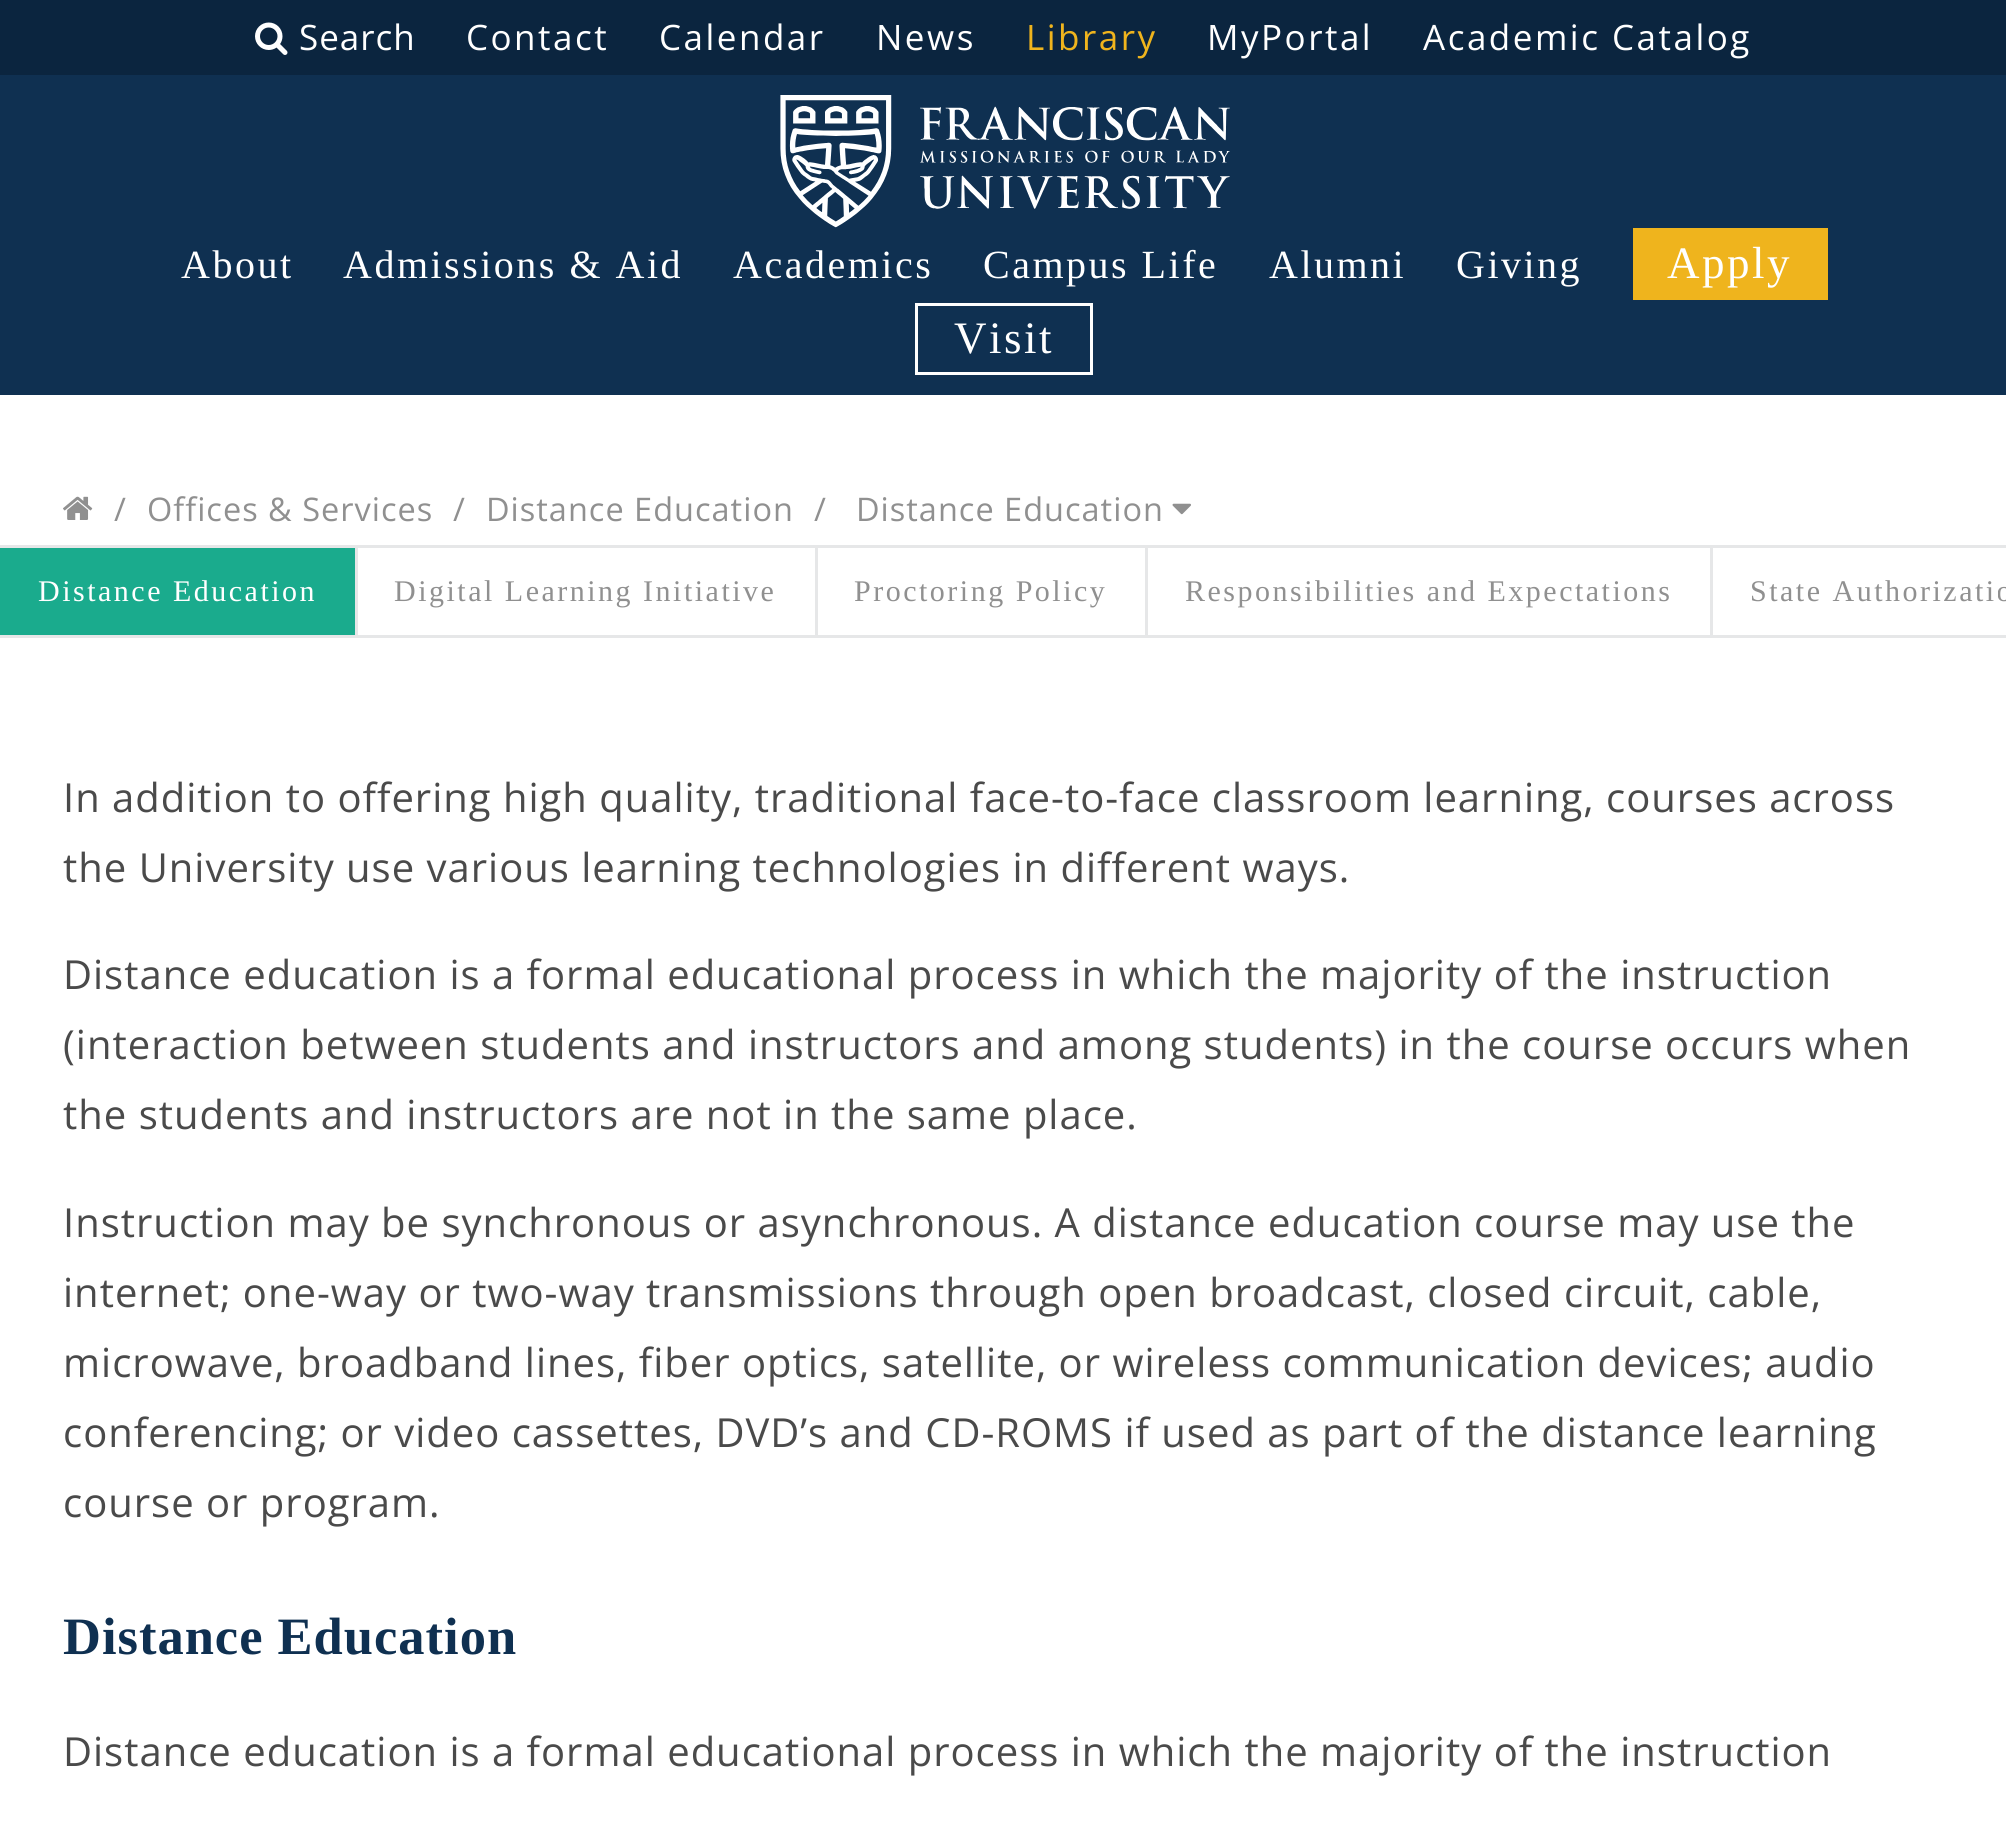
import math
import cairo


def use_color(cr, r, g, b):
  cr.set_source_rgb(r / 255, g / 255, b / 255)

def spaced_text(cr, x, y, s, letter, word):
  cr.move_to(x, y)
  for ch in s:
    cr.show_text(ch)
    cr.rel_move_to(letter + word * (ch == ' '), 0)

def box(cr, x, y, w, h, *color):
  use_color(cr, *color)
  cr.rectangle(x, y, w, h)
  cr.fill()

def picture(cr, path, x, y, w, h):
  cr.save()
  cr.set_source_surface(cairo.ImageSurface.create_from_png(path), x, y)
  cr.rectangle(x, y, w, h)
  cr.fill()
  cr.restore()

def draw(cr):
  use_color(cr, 11, 37, 63)
  cr.paint()
  picture(cr, "img_01.png", 255, 22, 33, 33)
  box(cr, 0, 75, 2006, 320, 15, 48, 81)
  picture(cr, "img_02.png", 780, 95, 450, 133)
  box(cr, 1633, 228, 195, 72, 239, 180, 29)
  cr.rectangle(916.5, 304.5, 175, 69)
  use_color(cr, 255, 255, 255)
  cr.set_line_width(3)
  cr.stroke()
  box(cr, 0, 395, 2006, 1428, 255, 255, 255)
  box(cr, 0, 545, 2006, 3, 230, 231, 232)
  picture(cr, "img_03.png", 63, 496, 30, 24)
  picture(cr, "img_04.png", 1172, 503, 19, 12)
  box(cr, 0, 635, 2006, 3, 230, 231, 232)
  box(cr, 0, 548, 355, 87, 26, 171, 141)
  box(cr, 355, 548, 3, 87, 230, 231, 232)
  box(cr, 815, 548, 3, 87, 230, 231, 232)
  box(cr, 1145, 548, 3, 87, 230, 231, 232)
  box(cr, 1710, 548, 3, 87, 230, 231, 232)
  cr.select_font_face("Open Sans")
  cr.set_font_size(35)
  use_color(cr, 255, 255, 255)
  spaced_text(cr, 299, 50, "Search", 1, 0)
  spaced_text(cr, 466, 50, "Contact", 2.5, 0)
  spaced_text(cr, 659, 50, "Calendar", 2.5, 0)
  spaced_text(cr, 876, 50, "News", 2.5, 0)
  use_color(cr, 239, 180, 29)
  spaced_text(cr, 1026, 50, "Library", 2.5, 0)
  use_color(cr, 255, 255, 255)
  spaced_text(cr, 1207, 50, "MyPortal", 2.5, 0)
  spaced_text(cr, 1423, 50, "Academic Catalog", 2.5, 0)
  cr.select_font_face("Liberation Serif")
  cr.set_font_size(40)
  spaced_text(cr, 181, 278, "About", 2.5, 0)
  spaced_text(cr, 343, 278, "Admissions & Aid", 2.5, 0)
  spaced_text(cr, 733, 278, "Academics", 2.5, 0)
  spaced_text(cr, 983, 278, "Campus Life", 2.5, 0)
  spaced_text(cr, 1269, 278, "Alumni", 2.5, 0)
  spaced_text(cr, 1456, 278, "Giving", 2.5, 0)
  cr.set_font_size(45)
  spaced_text(cr, 1667, 278, "Apply", 2.5, 0)
  spaced_text(cr, 954, 353, "Visit", 2.5, 0)
  cr.select_font_face("Open Sans")
  cr.set_font_size(32.5)
  use_color(cr, 144, 144, 144)
  spaced_text(cr, 114, 521, "/", 1, 0)
  spaced_text(cr, 147, 521, "Offices & Services", 1, 0)
  spaced_text(cr, 453, 521, "/", 1, 0)
  spaced_text(cr, 486, 521, "Distance Education", 1, 0)
  spaced_text(cr, 814, 521, "/", 1, 0)
  spaced_text(cr, 856, 521, "Distance Education", 1, 0)
  cr.select_font_face("Liberation Serif")
  cr.set_font_size(30)
  use_color(cr, 255, 255, 255)
  spaced_text(cr, 38, 601, "Distance Education", 2.5, 0)
  use_color(cr, 144, 144, 144)
  spaced_text(cr, 394, 601, "Digital Learning Initiative", 2.5, 0)
  spaced_text(cr, 854, 601, "Proctoring Policy", 2.5, 0)
  spaced_text(cr, 1185, 601, "Responsibilities and Expectations", 2.5, 0)
  spaced_text(cr, 1750, 601, "State Authorizatio", 2.5, 0)
  cr.select_font_face("Open Sans")
  cr.set_font_size(40)
  use_color(cr, 74, 74, 74)
  spaced_text(cr, 63, 812, "In addition to offering high quality, traditional face-to-face classroom learning, courses across", 1, 0)
  spaced_text(cr, 63, 882, "the University use various learning technologies in different ways.", 1, 0)
  spaced_text(cr, 63, 989, "Distance education is a formal educational process in which the majority of the instruction", 1, 0)
  spaced_text(cr, 63, 1059, "(interaction between students and instructors and among students) in the course occurs when", 1, 0)
  spaced_text(cr, 63, 1129, "the students and instructors are not in the same place.", 1, 0)
  spaced_text(cr, 63, 1237, "Instruction may be synchronous or asynchronous. A distance education course may use the", 1, 0)
  spaced_text(cr, 63, 1307, "internet; one-way or two-way transmissions through open broadcast, closed circuit, cable,", 1, 0)
  spaced_text(cr, 63, 1377, "microwave, broadband lines, fiber optics, satellite, or wireless communication devices; audio", 1, 0)
  spaced_text(cr, 63, 1447, "conferencing; or video cassettes, DVD’s and CD-ROMS if used as part of the distance learning", 1, 0)
  spaced_text(cr, 63, 1517, "course or program.", 1, 0)
  cr.select_font_face("Liberation Serif", cairo.FONT_SLANT_NORMAL, cairo.FONT_WEIGHT_BOLD)
  cr.set_font_size(52.5)
  use_color(cr, 15, 48, 81)
  spaced_text(cr, 63, 1654, "Distance Education", 1, 0)
  cr.select_font_face("Open Sans")
  cr.set_font_size(40)
  use_color(cr, 74, 74, 74)
  spaced_text(cr, 63, 1766, "Distance education is a formal educational process in which the majority of the instruction", 1, 0)


surface = cairo.ImageSurface(cairo.FORMAT_RGB24, 2006, 1823)
cr = cairo.Context(surface)
options = cairo.FontOptions()
options.set_hint_metrics(cairo.HINT_METRICS_OFF)
options.set_hint_style(cairo.HINT_STYLE_NONE)
cr.set_font_options(options)
cr.set_miter_limit(4)
draw(cr)
surface.write_to_png("out.png")
